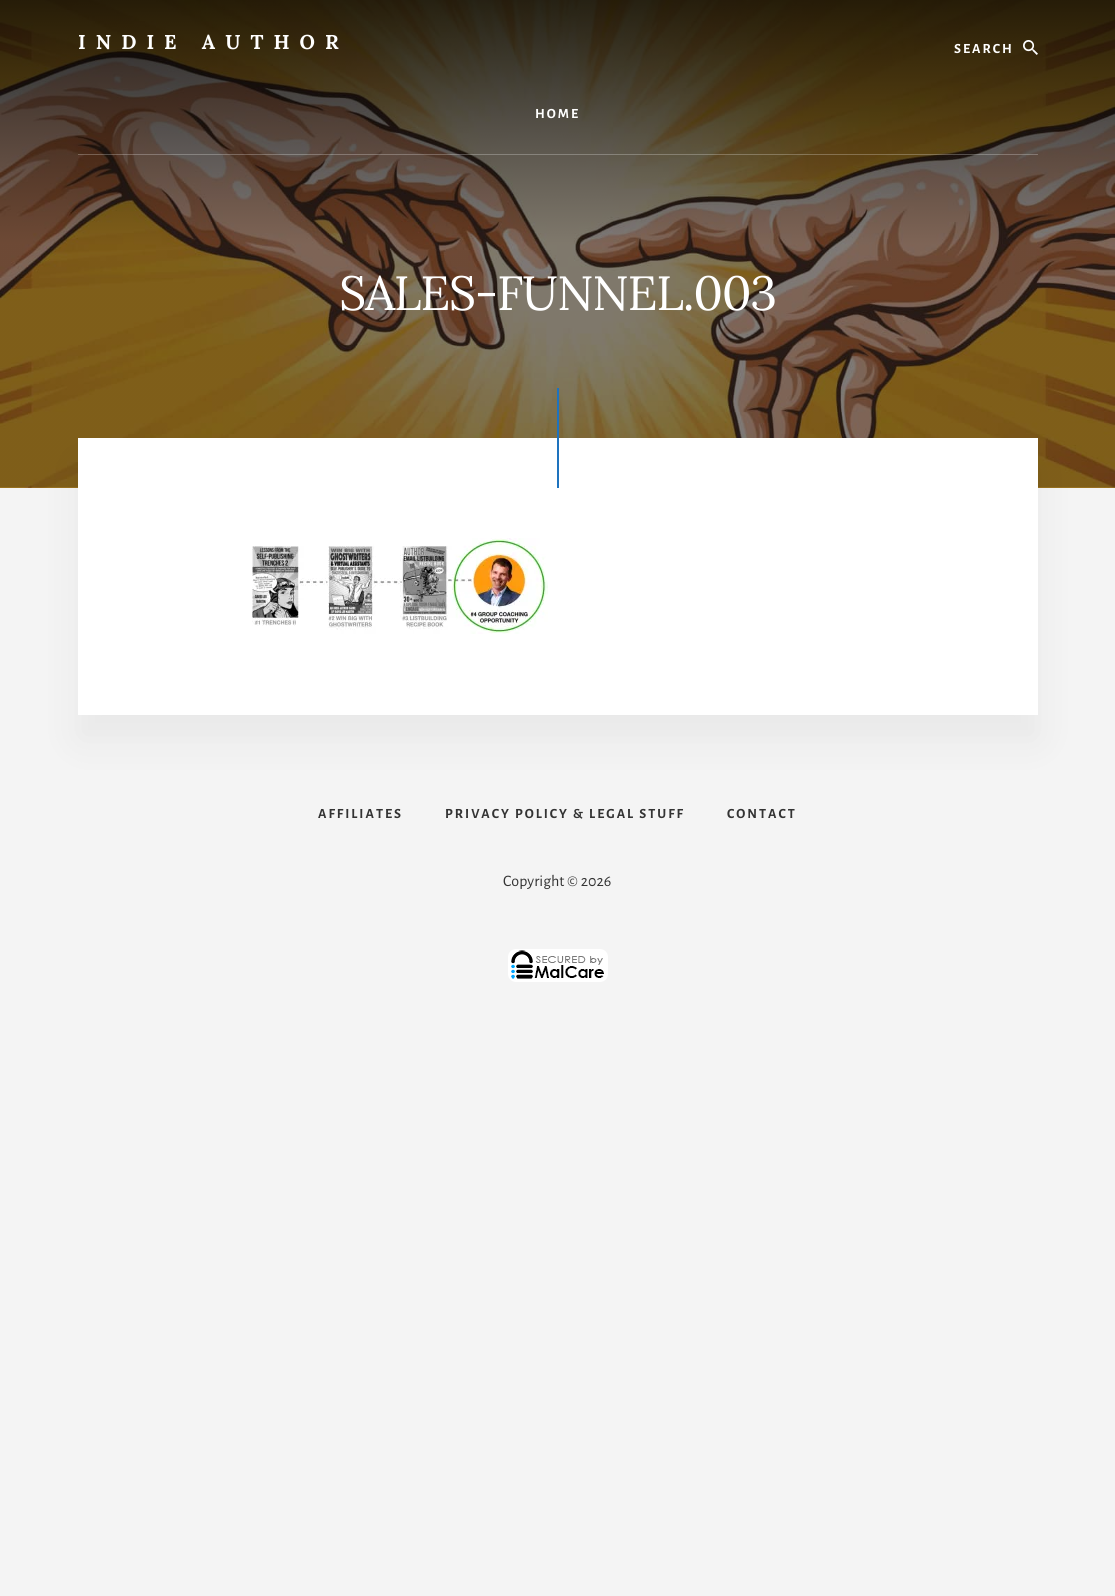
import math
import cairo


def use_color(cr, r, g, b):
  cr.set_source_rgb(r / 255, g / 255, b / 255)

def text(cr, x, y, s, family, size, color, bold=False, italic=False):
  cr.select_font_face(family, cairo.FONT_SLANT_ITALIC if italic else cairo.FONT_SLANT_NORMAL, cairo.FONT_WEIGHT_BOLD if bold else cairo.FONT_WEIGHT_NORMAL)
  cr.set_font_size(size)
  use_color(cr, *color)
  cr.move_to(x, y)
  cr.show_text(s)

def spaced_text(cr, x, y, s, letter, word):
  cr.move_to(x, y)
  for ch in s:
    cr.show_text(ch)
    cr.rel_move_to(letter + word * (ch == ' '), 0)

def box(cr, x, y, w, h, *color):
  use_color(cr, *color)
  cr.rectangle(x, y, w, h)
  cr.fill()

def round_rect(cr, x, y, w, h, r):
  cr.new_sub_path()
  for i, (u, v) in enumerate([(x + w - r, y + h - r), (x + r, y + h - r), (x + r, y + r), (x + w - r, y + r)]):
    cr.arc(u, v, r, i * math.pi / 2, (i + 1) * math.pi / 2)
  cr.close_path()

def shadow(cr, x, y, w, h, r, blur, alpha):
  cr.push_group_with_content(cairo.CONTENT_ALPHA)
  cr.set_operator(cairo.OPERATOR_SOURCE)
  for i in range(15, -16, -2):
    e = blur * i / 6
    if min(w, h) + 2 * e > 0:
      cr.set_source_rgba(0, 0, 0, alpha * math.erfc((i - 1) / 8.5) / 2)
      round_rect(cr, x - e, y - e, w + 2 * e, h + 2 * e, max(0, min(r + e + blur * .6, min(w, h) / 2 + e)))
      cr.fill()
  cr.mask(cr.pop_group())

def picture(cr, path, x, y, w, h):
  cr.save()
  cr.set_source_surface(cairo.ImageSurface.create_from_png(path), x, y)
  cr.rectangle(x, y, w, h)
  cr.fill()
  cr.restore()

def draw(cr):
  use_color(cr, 244, 244, 244)
  cr.paint()
  picture(cr, "img_01.png", 0, 0, 1115, 488)
  picture(cr, "img_02.png", 1023, 40, 15, 15)
  cr.set_source_rgba(1, 1, 1, 0.25)
  cr.rectangle(78, 154, 960, 1)
  cr.fill()
  use_color(cr, 0, 0, 0)
  shadow(cr, 78, 463, 960, 277, 0, 20, 0.05)
  box(cr, 78, 438, 960, 277, 255, 255, 255)
  box(cr, 557, 388, 2, 100, 30, 115, 190)
  picture(cr, "img_03.png", 252, 538, 296, 96)
  picture(cr, "img_04.png", 508, 949, 100, 33)
  cr.select_font_face("Lora", cairo.FONT_SLANT_NORMAL, cairo.FONT_WEIGHT_BOLD)
  cr.set_font_size(20)
  use_color(cr, 255, 255, 255)
  spaced_text(cr, 78, 49, "INDIE AUTHOR", 10, 0)
  cr.select_font_face("Alegreya Sans", cairo.FONT_SLANT_NORMAL, cairo.FONT_WEIGHT_BOLD)
  cr.set_font_size(14)
  spaced_text(cr, 954, 53, "SEARCH", 2, 0)
  spaced_text(cr, 535, 118, "HOME", 2, 0)
  cr.select_font_face("Lora")
  cr.set_font_size(48)
  spaced_text(cr, 339, 310, "SALES-FUNNEL.003", -1.25, 0)
  cr.select_font_face("Alegreya Sans", cairo.FONT_SLANT_NORMAL, cairo.FONT_WEIGHT_BOLD)
  cr.set_font_size(14)
  use_color(cr, 51, 51, 51)
  spaced_text(cr, 318, 818, "AFFILIATES", 2, 0)
  spaced_text(cr, 445, 818, "PRIVACY POLICY & LEGAL STUFF", 2, 0)
  spaced_text(cr, 727, 818, "CONTACT", 2, 0)
  text(cr, 503, 886, "Copyright © 2026", "Alegreya Sans", 16, (51, 51, 51))


surface = cairo.ImageSurface(cairo.FORMAT_RGB24, 1115, 1596)
cr = cairo.Context(surface)
options = cairo.FontOptions()
options.set_hint_metrics(cairo.HINT_METRICS_OFF)
options.set_hint_style(cairo.HINT_STYLE_NONE)
cr.set_font_options(options)
cr.set_miter_limit(4)
draw(cr)
surface.write_to_png("out.png")
